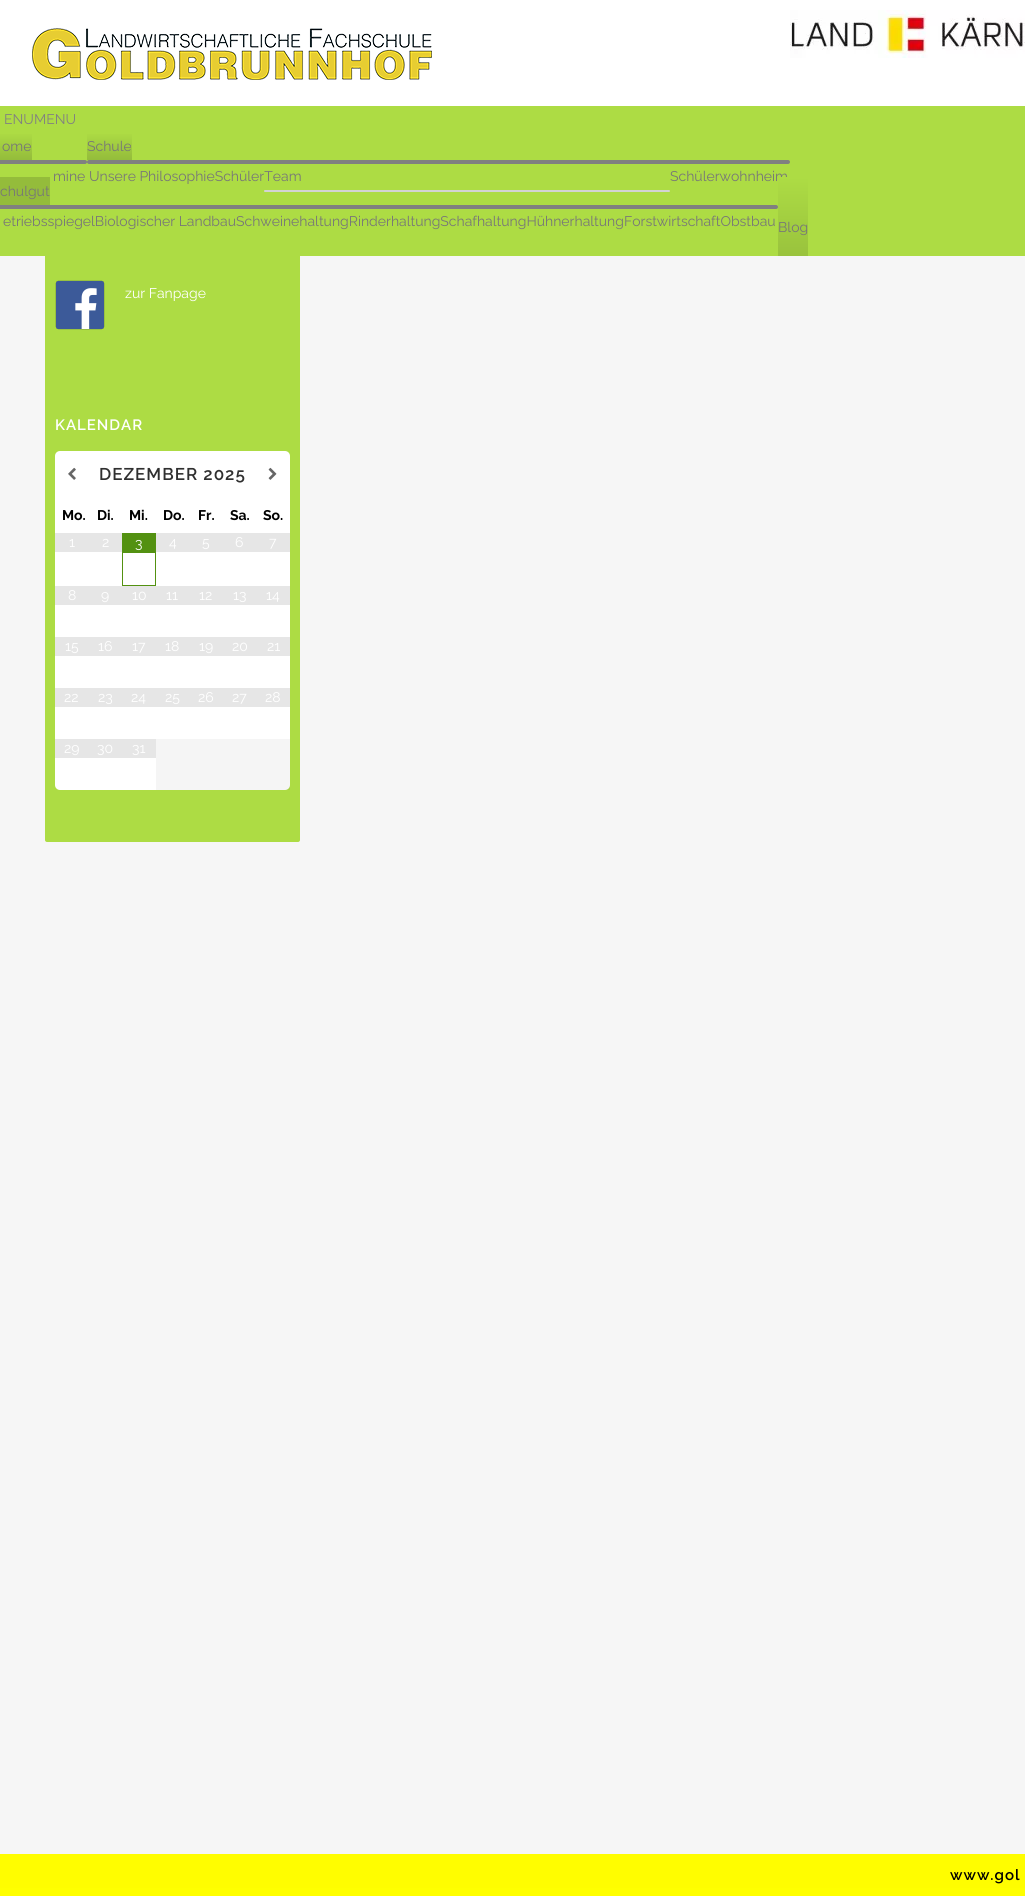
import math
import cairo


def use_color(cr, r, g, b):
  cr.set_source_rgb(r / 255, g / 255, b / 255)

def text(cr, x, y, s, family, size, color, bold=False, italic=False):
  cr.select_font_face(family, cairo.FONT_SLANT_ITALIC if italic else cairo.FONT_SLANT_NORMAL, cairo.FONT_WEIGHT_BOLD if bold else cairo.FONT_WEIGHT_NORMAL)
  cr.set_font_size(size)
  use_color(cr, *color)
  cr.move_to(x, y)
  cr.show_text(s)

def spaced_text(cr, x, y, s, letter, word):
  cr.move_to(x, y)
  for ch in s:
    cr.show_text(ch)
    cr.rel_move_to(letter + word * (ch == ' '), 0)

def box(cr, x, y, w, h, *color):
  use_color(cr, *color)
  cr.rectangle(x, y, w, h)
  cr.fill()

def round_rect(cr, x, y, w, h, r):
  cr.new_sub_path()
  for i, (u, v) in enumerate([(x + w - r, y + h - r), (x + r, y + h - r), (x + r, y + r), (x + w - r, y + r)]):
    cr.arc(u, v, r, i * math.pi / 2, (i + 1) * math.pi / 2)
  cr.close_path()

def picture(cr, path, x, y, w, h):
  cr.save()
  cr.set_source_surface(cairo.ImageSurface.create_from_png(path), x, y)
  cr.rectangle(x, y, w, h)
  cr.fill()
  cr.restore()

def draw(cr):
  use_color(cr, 246, 246, 246)
  cr.paint()
  box(cr, 0, 0, 1025, 106, 255, 255, 255)
  picture(cr, "img_01.png", 32, 28, 400, 52)
  picture(cr, "img_02.png", 790, 10, 235, 48)
  use_color(cr, 173, 220, 68)
  round_rect(cr, 45, 232, 255, 610, 2)
  cr.fill()
  box(cr, 0, 106, 1025, 150, 173, 220, 68)
  gradient = cairo.LinearGradient(12, 132, 12, 160)
  gradient.add_color_stop_rgba(0, 0.678, 0.863, 0.267, 1)
  gradient.add_color_stop_rgba(1, 0.58, 0.737, 0.231, 1)
  cr.set_source(gradient)
  cr.rectangle(0, 134, 32, 26)
  cr.fill()
  use_color(cr, 128, 128, 128)
  round_rect(cr, -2, 160, 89, 4, 2)
  cr.fill()
  gradient = cairo.LinearGradient(110, 132, 110, 160)
  gradient.add_color_stop_rgba(0, 0.678, 0.863, 0.267, 1)
  gradient.add_color_stop_rgba(1, 0.58, 0.737, 0.231, 1)
  cr.set_source(gradient)
  cr.rectangle(87, 134, 45, 26)
  cr.fill()
  use_color(cr, 128, 128, 128)
  round_rect(cr, 87, 160, 703, 4, 2)
  cr.fill()
  use_color(cr, 211, 211, 211)
  round_rect(cr, 264, 190, 406, 2, 1)
  cr.fill()
  box(cr, 0, 177, 50, 28, 148, 188, 59)
  use_color(cr, 128, 128, 128)
  round_rect(cr, -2, 205, 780, 4, 2)
  cr.fill()
  picture(cr, "img_03.png", 55, 280, 50, 50)
  use_color(cr, 255, 255, 255)
  round_rect(cr, 55, 451, 235, 339, 5)
  cr.fill()
  picture(cr, "img_04.png", 68, 467, 8, 13)
  picture(cr, "img_05.png", 268, 467, 9, 13)
  box(cr, 55, 533, 67, 19, 230, 230, 230)
  cr.rectangle(122.5, 533.5, 33, 52)
  use_color(cr, 83, 145, 17)
  cr.set_line_width(1)
  cr.stroke()
  box(cr, 123, 534, 32, 19, 83, 145, 17)
  box(cr, 156, 533, 134, 19, 230, 230, 230)
  box(cr, 55, 586, 235, 19, 230, 230, 230)
  box(cr, 55, 637, 235, 19, 230, 230, 230)
  box(cr, 55, 688, 235, 19, 230, 230, 230)
  box(cr, 55, 739, 101, 19, 230, 230, 230)
  box(cr, 156, 739, 100, 51, 245, 245, 245)
  cr.set_source_rgba(0, 0, 0, 0.04)
  cr.rectangle(256, 739, 34, 51)
  cr.fill()
  box(cr, 0, 1888, 1025, 8, 255, 255, 0)
  box(cr, 0, 1854, 1025, 34, 255, 253, 0)
  text(cr, 4, 124, "ENUMENU", "Raleway", 14, (129, 129, 129))
  text(cr, 2, 151, "ome", "Raleway", 14, (119, 119, 119))
  text(cr, 53, 181, "mine", "Raleway", 14, (119, 119, 119))
  text(cr, 87, 151, "Schule", "Raleway", 14, (119, 119, 119))
  text(cr, 89, 181, "Unsere PhilosophieSchülerTeam", "Raleway", 14, (119, 119, 119))
  text(cr, 670, 181, "Schülerwohnheim", "Raleway", 14, (119, 119, 119))
  text(cr, 0, 196, "chulgut", "Raleway", 14, (119, 119, 119))
  text(cr, 3, 226, "etriebsspiegelBiologischer LandbauSchweinehaltungRinderhaltungSchafhaltungHühnerhaltungForstwirtschaftObstbau", "Raleway", 14, (119, 119, 119))
  gradient = cairo.LinearGradient(793, 177, 793, 277)
  gradient.add_color_stop_rgba(0, 0.678, 0.863, 0.267, 1)
  gradient.add_color_stop_rgba(1, 0.58, 0.737, 0.231, 1)
  cr.set_source(gradient)
  cr.rectangle(778, 177, 30, 79)
  cr.fill()
  text(cr, 778, 232, "Blog", "Raleway", 14, (119, 119, 119))
  text(cr, 125, 298, "zur Fanpage", "Raleway", 14, (255, 255, 255))
  cr.select_font_face("Raleway SemiBold")
  cr.set_font_size(15)
  spaced_text(cr, 55, 430, "KALENDAR", 1, 0)
  cr.set_font_size(17)
  use_color(cr, 48, 48, 48)
  spaced_text(cr, 99, 480, "DEZEMBER 2025", 1, 0)
  text(cr, 62, 520, "Mo.", "Raleway", 14, (0, 0, 0), bold=True)
  text(cr, 97, 520, "Di.", "Raleway", 14, (0, 0, 0), bold=True)
  text(cr, 129, 520, "Mi.", "Raleway", 14, (0, 0, 0), bold=True)
  text(cr, 163, 520, "Do.", "Raleway", 14, (0, 0, 0), bold=True)
  text(cr, 198, 520, "Fr.", "Raleway", 14, (0, 0, 0), bold=True)
  text(cr, 230, 520, "Sa.", "Raleway", 14, (0, 0, 0), bold=True)
  text(cr, 263, 520, "So.", "Raleway", 14, (0, 0, 0), bold=True)
  text(cr, 69, 547, "1", "Raleway", 14, (255, 255, 255))
  text(cr, 102, 547, "2", "Raleway", 14, (255, 255, 255))
  text(cr, 135, 548, "3", "Raleway", 14, (255, 255, 255))
  text(cr, 169, 547, "4", "Raleway", 14, (255, 255, 255))
  text(cr, 202, 547, "5", "Raleway", 14, (255, 255, 255))
  text(cr, 235, 547, "6", "Raleway", 14, (255, 255, 255))
  text(cr, 269, 547, "7", "Raleway", 14, (255, 255, 255))
  text(cr, 68, 600, "8", "Raleway", 14, (255, 255, 255))
  text(cr, 101, 600, "9", "Raleway", 14, (255, 255, 255))
  text(cr, 132, 600, "10", "Raleway", 14, (255, 255, 255))
  text(cr, 166, 600, "11", "Raleway", 14, (255, 255, 255))
  text(cr, 199, 600, "12", "Raleway", 14, (255, 255, 255))
  text(cr, 233, 600, "13", "Raleway", 14, (255, 255, 255))
  text(cr, 266, 600, "14", "Raleway", 14, (255, 255, 255))
  text(cr, 65, 651, "15", "Raleway", 14, (255, 255, 255))
  text(cr, 98, 651, "16", "Raleway", 14, (255, 255, 255))
  text(cr, 132, 651, "17", "Raleway", 14, (255, 255, 255))
  text(cr, 165, 651, "18", "Raleway", 14, (255, 255, 255))
  text(cr, 199, 651, "19", "Raleway", 14, (255, 255, 255))
  text(cr, 232, 651, "20", "Raleway", 14, (255, 255, 255))
  text(cr, 267, 651, "21", "Raleway", 14, (255, 255, 255))
  text(cr, 64, 702, "22", "Raleway", 14, (255, 255, 255))
  text(cr, 98, 702, "23", "Raleway", 14, (255, 255, 255))
  text(cr, 131, 702, "24", "Raleway", 14, (255, 255, 255))
  text(cr, 165, 702, "25", "Raleway", 14, (255, 255, 255))
  text(cr, 198, 702, "26", "Raleway", 14, (255, 255, 255))
  text(cr, 232, 702, "27", "Raleway", 14, (255, 255, 255))
  text(cr, 265, 702, "28", "Raleway", 14, (255, 255, 255))
  text(cr, 64, 753, "29", "Raleway", 14, (255, 255, 255))
  text(cr, 97, 753, "30", "Raleway", 14, (255, 255, 255))
  text(cr, 132, 753, "31", "Raleway", 14, (255, 255, 255))
  cr.select_font_face("Raleway SemiBold")
  cr.set_font_size(15)
  use_color(cr, 0, 0, 0)
  spaced_text(cr, 950, 1880, "www.gol", 1, 0)


surface = cairo.ImageSurface(cairo.FORMAT_RGB24, 1025, 1896)
cr = cairo.Context(surface)
options = cairo.FontOptions()
options.set_hint_metrics(cairo.HINT_METRICS_OFF)
options.set_hint_style(cairo.HINT_STYLE_NONE)
cr.set_font_options(options)
cr.set_miter_limit(4)
draw(cr)
surface.write_to_png("out.png")
